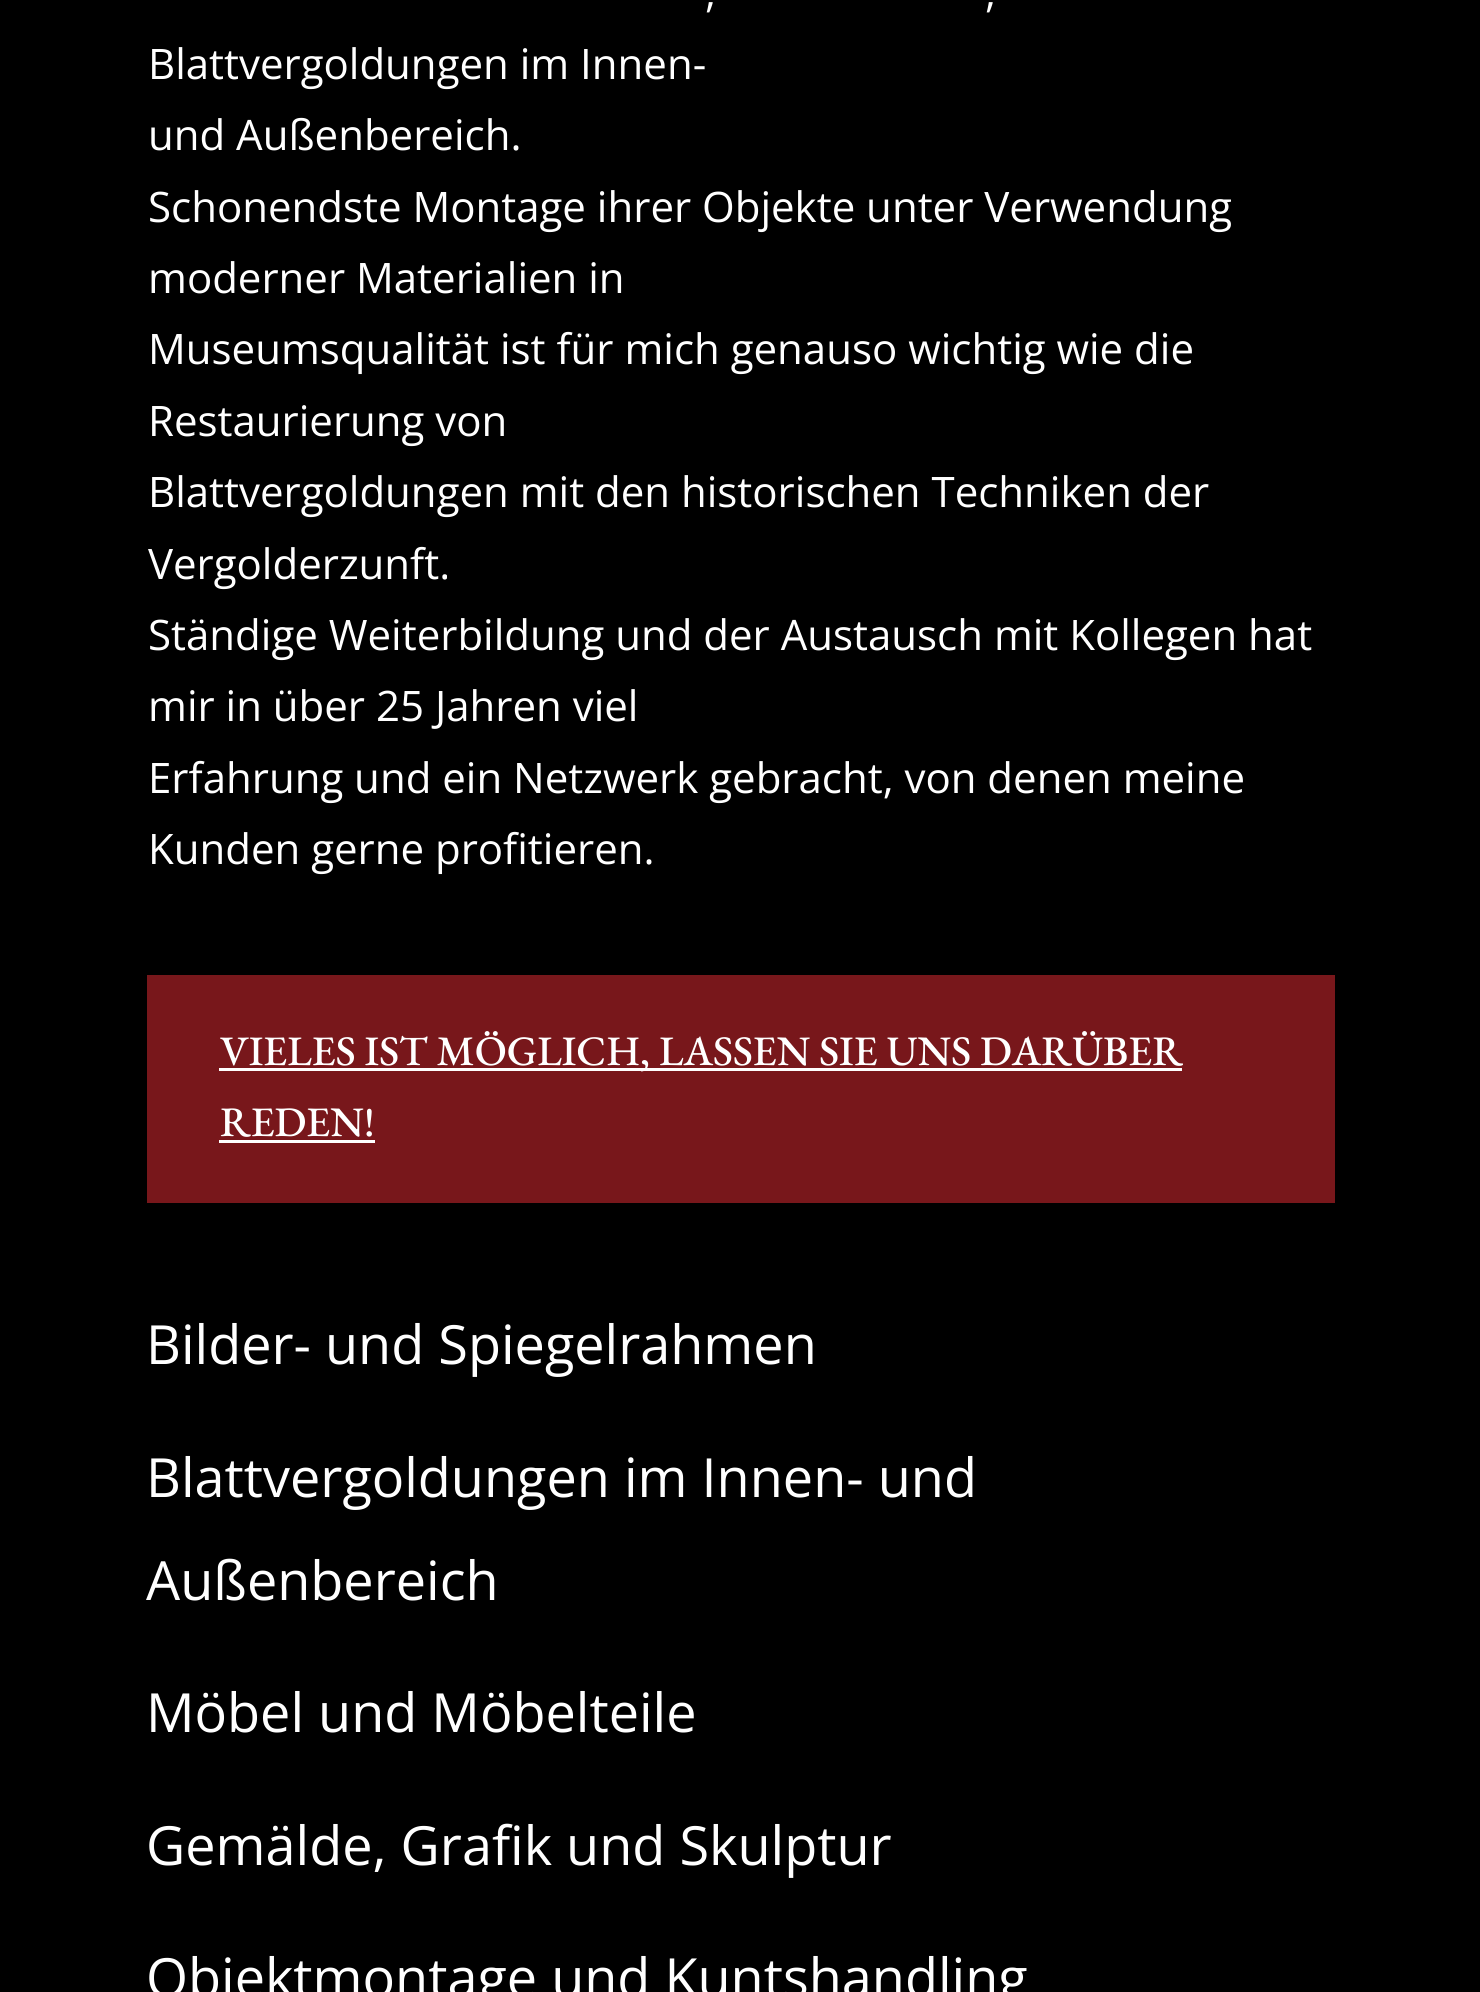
import math
import cairo


def use_color(cr, r, g, b):
  cr.set_source_rgb(r / 255, g / 255, b / 255)

def text(cr, x, y, s, family, size, color, bold=False, italic=False):
  cr.select_font_face(family, cairo.FONT_SLANT_ITALIC if italic else cairo.FONT_SLANT_NORMAL, cairo.FONT_WEIGHT_BOLD if bold else cairo.FONT_WEIGHT_NORMAL)
  cr.set_font_size(size)
  use_color(cr, *color)
  cr.move_to(x, y)
  cr.show_text(s)

def box(cr, x, y, w, h, *color):
  use_color(cr, *color)
  cr.rectangle(x, y, w, h)
  cr.fill()

def draw(cr):
  use_color(cr, 0, 0, 0)
  cr.paint()
  box(cr, 177, 1005, 1128, 168, 120, 23, 27)
  cr.new_path()
  cr.move_to(162, 990)
  cr.line_to(1320, 990)
  cr.line_to(1320, 1188)
  cr.line_to(162, 1188)
  cr.close_path()
  cr.set_line_width(30)
  cr.stroke()
  box(cr, 219, 1068, 963, 3, 255, 255, 255)
  box(cr, 219, 1140, 156, 3, 255, 255, 255)
  text(cr, 705, 7, ",", "Open Sans", 42, (255, 255, 255))
  text(cr, 985, 7, ",", "Open Sans", 42, (255, 255, 255))
  text(cr, 148, 79, "Blattvergoldungen im Innen-", "Open Sans", 42, (255, 255, 255))
  text(cr, 148, 150, "und Außenbereich.", "Open Sans", 42, (255, 255, 255))
  text(cr, 148, 222, "Schonendste Montage ihrer Objekte unter Verwendung", "Open Sans", 42, (255, 255, 255))
  text(cr, 148, 293, "moderner Materialien in", "Open Sans", 42, (255, 255, 255))
  text(cr, 148, 364, "Museumsqualität ist für mich genauso wichtig wie die", "Open Sans", 42, (255, 255, 255))
  text(cr, 148, 436, "Restaurierung von", "Open Sans", 42, (255, 255, 255))
  text(cr, 148, 507, "Blattvergoldungen mit den historischen Techniken der", "Open Sans", 42, (255, 255, 255))
  text(cr, 148, 579, "Vergolderzunft.", "Open Sans", 42, (255, 255, 255))
  text(cr, 148, 650, "Ständige Weiterbildung und der Austausch mit Kollegen hat", "Open Sans", 42, (255, 255, 255))
  text(cr, 148, 721, "mir in über 25 Jahren viel", "Open Sans", 42, (255, 255, 255))
  text(cr, 148, 793, "Erfahrung und ein Netzwerk gebracht, von denen meine", "Open Sans", 42, (255, 255, 255))
  text(cr, 148, 864, "Kunden gerne profitieren.", "Open Sans", 42, (255, 255, 255))
  text(cr, 220, 1065, "VIELES IST MÖGLICH, LASSEN SIE UNS DARÜBER", "EB Garamond Medium", 42, (255, 255, 255))
  text(cr, 220, 1136, "REDEN!", "EB Garamond Medium", 42, (255, 255, 255))
  text(cr, 146, 1364, "Bilder- und Spiegelrahmen", "Open Sans", 54, (255, 255, 255))
  text(cr, 146, 1497, "Blattvergoldungen im Innen- und", "Open Sans", 54, (255, 255, 255))
  text(cr, 146, 1600, "Außenbereich", "Open Sans", 54, (255, 255, 255))
  text(cr, 146, 1732, "Möbel und Möbelteile", "Open Sans", 54, (255, 255, 255))
  text(cr, 146, 1865, "Gemälde, Grafik und Skulptur", "Open Sans", 54, (255, 255, 255))
  text(cr, 146, 1997, "Objektmontage und Kuntshandling", "Open Sans", 54, (255, 255, 255))


surface = cairo.ImageSurface(cairo.FORMAT_RGB24, 1480, 1992)
cr = cairo.Context(surface)
options = cairo.FontOptions()
options.set_hint_metrics(cairo.HINT_METRICS_OFF)
options.set_hint_style(cairo.HINT_STYLE_NONE)
cr.set_font_options(options)
cr.set_miter_limit(4)
draw(cr)
surface.write_to_png("out.png")
